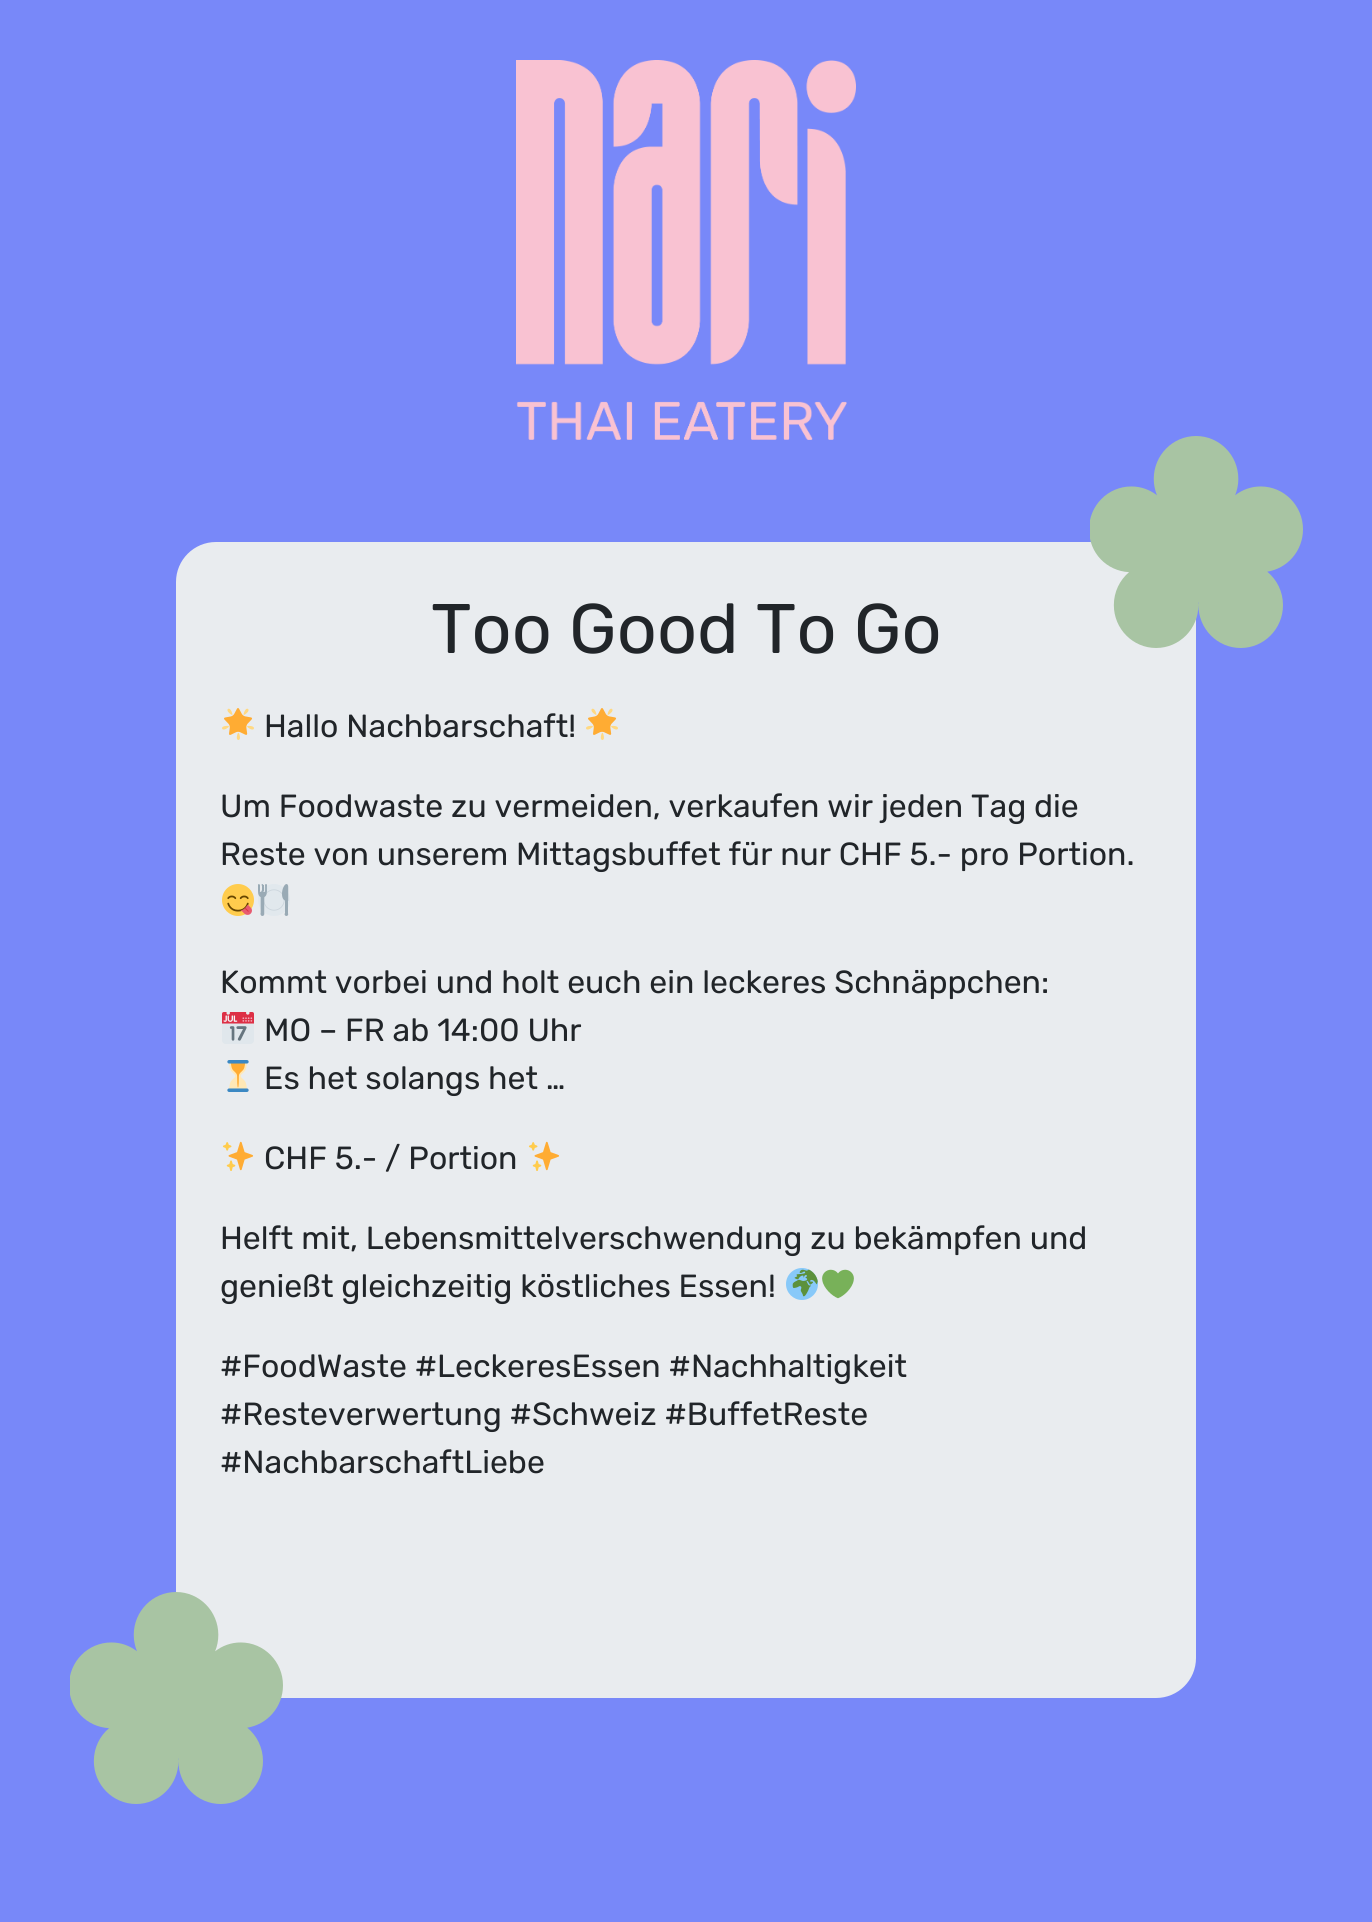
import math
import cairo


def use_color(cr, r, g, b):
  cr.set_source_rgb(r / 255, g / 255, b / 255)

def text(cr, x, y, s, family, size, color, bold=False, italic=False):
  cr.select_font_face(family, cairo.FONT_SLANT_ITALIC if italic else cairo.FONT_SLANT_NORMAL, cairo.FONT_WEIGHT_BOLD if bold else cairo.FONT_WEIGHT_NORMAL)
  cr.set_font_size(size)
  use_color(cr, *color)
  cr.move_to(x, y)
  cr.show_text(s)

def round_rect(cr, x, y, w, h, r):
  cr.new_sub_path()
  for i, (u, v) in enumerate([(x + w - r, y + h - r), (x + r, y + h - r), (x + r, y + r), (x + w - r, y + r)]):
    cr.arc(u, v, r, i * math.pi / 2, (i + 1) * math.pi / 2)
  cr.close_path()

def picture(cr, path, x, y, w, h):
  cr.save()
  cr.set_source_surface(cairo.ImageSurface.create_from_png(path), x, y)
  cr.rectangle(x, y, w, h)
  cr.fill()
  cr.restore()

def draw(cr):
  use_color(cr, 120, 136, 249)
  cr.paint()
  picture(cr, "img_01.png", 516, 60, 340, 380)
  use_color(cr, 233, 236, 239)
  round_rect(cr, 176, 542, 1020, 1156, 40)
  cr.fill()
  picture(cr, "img_02.png", 1090, 436, 213, 212)
  picture(cr, "img_03.png", 222, 708, 32, 32)
  picture(cr, "img_03.png", 586, 708, 32, 32)
  picture(cr, "img_04.png", 222, 884, 32, 32)
  picture(cr, "img_05.png", 258, 884, 32, 32)
  picture(cr, "img_06.png", 222, 1012, 32, 32)
  picture(cr, "img_07.png", 227, 1060, 22, 32)
  picture(cr, "img_08.png", 222, 1141, 32, 30)
  picture(cr, "img_08.png", 528, 1141, 32, 30)
  picture(cr, "img_09.png", 786, 1268, 32, 32)
  picture(cr, "img_10.png", 822, 1269, 32, 30)
  picture(cr, "img_11.png", 70, 1592, 213, 212)
  text(cr, 431, 653, "Too Good To Go", "Rubik", 70, (33, 37, 41))
  text(cr, 264, 737, "Hallo Nachbarschaft!", "Rubik", 32, (33, 37, 41))
  text(cr, 220, 817, "Um Foodwaste zu vermeiden, verkaufen wir jeden Tag die", "Rubik", 32, (33, 37, 41))
  text(cr, 220, 865, "Reste von unserem Mittagsbuffet für nur CHF 5.- pro Portion.", "Rubik", 32, (33, 37, 41))
  text(cr, 220, 993, "Kommt vorbei und holt euch ein leckeres Schnäppchen:", "Rubik", 32, (33, 37, 41))
  text(cr, 264, 1041, "MO – FR ab 14:00 Uhr", "Rubik", 32, (33, 37, 41))
  text(cr, 264, 1089, "Es het solangs het …", "Rubik", 32, (33, 37, 41))
  text(cr, 264, 1169, "CHF 5.- / Portion", "Rubik", 32, (33, 37, 41))
  text(cr, 220, 1249, "Helft mit, Lebensmittelverschwendung zu bekämpfen und", "Rubik", 32, (33, 37, 41))
  text(cr, 220, 1297, "genießt gleichzeitig köstliches Essen!", "Rubik", 32, (33, 37, 41))
  text(cr, 220, 1377, "#FoodWaste #LeckeresEssen #Nachhaltigkeit", "Rubik", 32, (33, 37, 41))
  text(cr, 220, 1425, "#Resteverwertung #Schweiz #BuffetReste", "Rubik", 32, (33, 37, 41))
  text(cr, 220, 1473, "#NachbarschaftLiebe", "Rubik", 32, (33, 37, 41))


surface = cairo.ImageSurface(cairo.FORMAT_RGB24, 1372, 1922)
cr = cairo.Context(surface)
options = cairo.FontOptions()
options.set_hint_metrics(cairo.HINT_METRICS_OFF)
options.set_hint_style(cairo.HINT_STYLE_NONE)
cr.set_font_options(options)
cr.set_miter_limit(4)
draw(cr)
surface.write_to_png("out.png")
